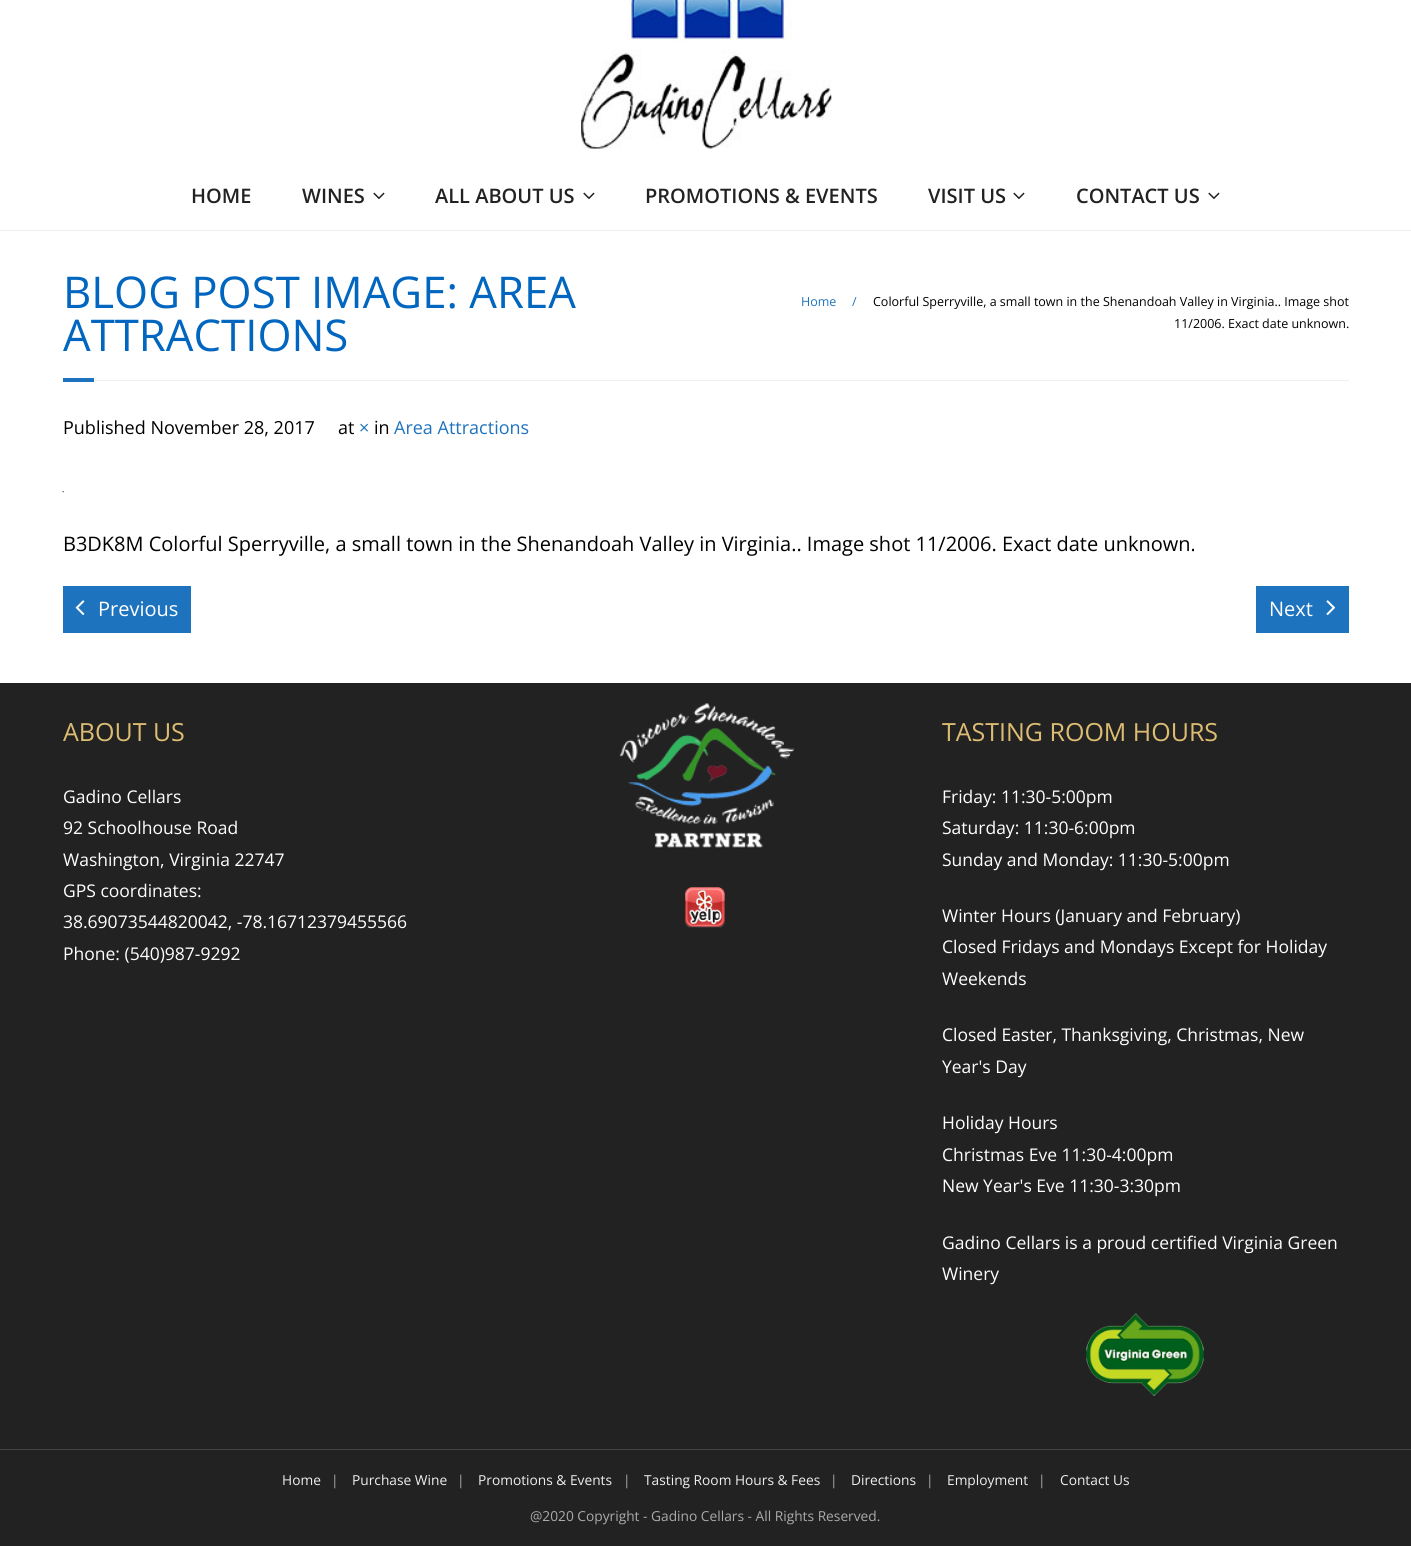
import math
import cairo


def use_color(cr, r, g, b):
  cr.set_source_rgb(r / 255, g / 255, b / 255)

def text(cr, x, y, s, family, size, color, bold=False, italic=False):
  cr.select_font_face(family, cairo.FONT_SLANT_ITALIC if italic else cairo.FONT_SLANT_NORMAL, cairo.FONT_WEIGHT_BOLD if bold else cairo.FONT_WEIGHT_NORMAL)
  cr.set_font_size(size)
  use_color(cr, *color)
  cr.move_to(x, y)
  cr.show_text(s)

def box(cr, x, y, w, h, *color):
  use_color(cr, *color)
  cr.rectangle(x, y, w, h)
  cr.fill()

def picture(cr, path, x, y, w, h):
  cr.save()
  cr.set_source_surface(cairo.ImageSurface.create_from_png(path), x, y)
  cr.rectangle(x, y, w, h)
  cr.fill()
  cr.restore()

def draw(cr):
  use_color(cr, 255, 255, 255)
  cr.paint()
  picture(cr, "img_01.png", 581, 0, 251, 149)
  box(cr, 0, 230, 1411, 1, 238, 238, 238)
  picture(cr, "img_02.png", 373, 192, 12, 8)
  picture(cr, "img_02.png", 583, 192, 12, 8)
  picture(cr, "img_02.png", 1013, 192, 12, 8)
  picture(cr, "img_02.png", 1208, 192, 12, 8)
  box(cr, 63, 378, 31, 4, 30, 115, 190)
  box(cr, 94, 380, 1255, 1, 238, 238, 238)
  picture(cr, "img_03.png", 62, 491, 2, 2)
  box(cr, 63, 586, 128, 47, 30, 115, 190)
  picture(cr, "img_04.png", 75, 600, 10, 15)
  box(cr, 1256, 586, 93, 47, 30, 115, 190)
  picture(cr, "img_05.png", 1326, 600, 10, 16)
  box(cr, 0, 683, 1411, 766, 34, 34, 34)
  picture(cr, "img_06.png", 619, 703, 176, 146)
  picture(cr, "img_07.png", 685, 887, 40, 41)
  picture(cr, "img_08.png", 1086, 1313, 118, 83)
  box(cr, 0, 1450, 1411, 96, 34, 34, 34)
  box(cr, 0, 1449, 1411, 1, 68, 68, 68)
  text(cr, 191, 203, "HOME", "Open Sans SemiBold", 20, (34, 34, 34))
  text(cr, 302, 203, "WINES", "Open Sans SemiBold", 20, (34, 34, 34))
  text(cr, 435, 203, "ALL ABOUT US", "Open Sans SemiBold", 20, (34, 34, 34))
  text(cr, 645, 203, "PROMOTIONS & EVENTS", "Open Sans SemiBold", 20, (34, 34, 34))
  text(cr, 928, 203, "VISIT US", "Open Sans SemiBold", 20, (34, 34, 34))
  text(cr, 1076, 203, "CONTACT US", "Open Sans SemiBold", 20, (34, 34, 34))
  text(cr, 63, 308, "BLOG POST IMAGE: AREA", "Open Sans", 43.75, (0, 102, 191))
  text(cr, 63, 351, "ATTRACTIONS", "Open Sans", 43.75, (0, 102, 191))
  text(cr, 801, 306, "Home", "Open Sans", 12.5, (30, 115, 190))
  text(cr, 852, 306, "/", "Open Sans", 12.5, (30, 115, 190))
  text(cr, 873, 306, "Colorful Sperryville, a small town in the Shenandoah Valley in Virginia.. Image shot", "Open Sans", 12.5, (0, 0, 0))
  text(cr, 1174, 328, "11/2006. Exact date unknown.", "Open Sans", 12.5, (0, 0, 0))
  text(cr, 63, 434, "Published November 28, 2017", "Open Sans", 18, (0, 0, 0))
  text(cr, 338, 434, "at", "Open Sans", 18, (0, 0, 0))
  text(cr, 359, 434, "×", "Open Sans", 18, (30, 115, 190))
  text(cr, 374, 434, "in", "Open Sans", 18, (0, 0, 0))
  text(cr, 394, 434, "Area Attractions", "Open Sans", 18, (30, 115, 190))
  text(cr, 63, 551, "B3DK8M Colorful Sperryville, a small town in the Shenandoah Valley in Virginia.. Image shot 11/2006. Exact date unknown.", "Open Sans", 20, (0, 0, 0))
  text(cr, 98, 616, "Previous", "Open Sans", 20, (255, 255, 255))
  text(cr, 1269, 616, "Next", "Open Sans", 20, (255, 255, 255))
  text(cr, 63, 741, "ABOUT US", "Open Sans", 25, (221, 189, 113))
  text(cr, 63, 803, "Gadino Cellars", "Open Sans", 17.5, (255, 255, 255))
  text(cr, 63, 834, "92 Schoolhouse Road", "Open Sans", 17.5, (255, 255, 255))
  text(cr, 63, 866, "Washington, Virginia 22747", "Open Sans", 17.5, (255, 255, 255))
  text(cr, 63, 897, "GPS coordinates:", "Open Sans", 17.5, (255, 255, 255))
  text(cr, 63, 928, "38.69073544820042, -78.16712379455566", "Open Sans", 17.5, (255, 255, 255))
  text(cr, 63, 960, "Phone: (540)987-9292", "Open Sans", 17.5, (255, 255, 255))
  text(cr, 942, 741, "TASTING ROOM HOURS", "Open Sans", 25, (221, 189, 113))
  text(cr, 942, 803, "Friday: 11:30-5:00pm", "Open Sans", 17.5, (255, 255, 255))
  text(cr, 942, 834, "Saturday: 11:30-6:00pm", "Open Sans", 17.5, (255, 255, 255))
  text(cr, 942, 866, "Sunday and Monday: 11:30-5:00pm", "Open Sans", 17.5, (255, 255, 255))
  text(cr, 942, 922, "Winter Hours (January and February)", "Open Sans", 17.5, (255, 255, 255))
  text(cr, 942, 953, "Closed Fridays and Mondays Except for Holiday", "Open Sans", 17.5, (255, 255, 255))
  text(cr, 942, 985, "Weekends", "Open Sans", 17.5, (255, 255, 255))
  text(cr, 942, 1041, "Closed Easter, Thanksgiving, Christmas, New", "Open Sans", 17.5, (255, 255, 255))
  text(cr, 942, 1073, "Year's Day", "Open Sans", 17.5, (255, 255, 255))
  text(cr, 942, 1129, "Holiday Hours", "Open Sans", 17.5, (255, 255, 255))
  text(cr, 942, 1161, "Christmas Eve 11:30-4:00pm", "Open Sans", 17.5, (255, 255, 255))
  text(cr, 942, 1192, "New Year's Eve 11:30-3:30pm", "Open Sans", 17.5, (255, 255, 255))
  text(cr, 942, 1249, "Gadino Cellars is a proud certified Virginia Green", "Open Sans", 17.5, (255, 255, 255))
  text(cr, 942, 1280, "Winery", "Open Sans", 17.5, (255, 255, 255))
  text(cr, 282, 1485, "Home", "Open Sans", 13.75, (238, 238, 238))
  text(cr, 331, 1485, "|", "Open Sans", 13.75, (170, 170, 170))
  text(cr, 352, 1485, "Purchase Wine", "Open Sans", 13.75, (238, 238, 238))
  text(cr, 457, 1485, "|", "Open Sans", 13.75, (170, 170, 170))
  text(cr, 478, 1485, "Promotions & Events", "Open Sans", 13.75, (238, 238, 238))
  text(cr, 623, 1485, "|", "Open Sans", 13.75, (170, 170, 170))
  text(cr, 644, 1485, "Tasting Room Hours & Fees", "Open Sans", 13.75, (238, 238, 238))
  text(cr, 830, 1485, "|", "Open Sans", 13.75, (170, 170, 170))
  text(cr, 851, 1485, "Directions", "Open Sans", 13.75, (238, 238, 238))
  text(cr, 926, 1485, "|", "Open Sans", 13.75, (170, 170, 170))
  text(cr, 947, 1485, "Employment", "Open Sans", 13.75, (238, 238, 238))
  text(cr, 1038, 1485, "|", "Open Sans", 13.75, (170, 170, 170))
  text(cr, 1060, 1485, "Contact Us", "Open Sans", 13.75, (238, 238, 238))
  text(cr, 530, 1521, "@2020 Copyright - Gadino Cellars - All Rights Reserved.", "Open Sans", 13.75, (170, 170, 170))


surface = cairo.ImageSurface(cairo.FORMAT_RGB24, 1411, 1546)
cr = cairo.Context(surface)
options = cairo.FontOptions()
options.set_hint_metrics(cairo.HINT_METRICS_OFF)
options.set_hint_style(cairo.HINT_STYLE_NONE)
cr.set_font_options(options)
cr.set_miter_limit(4)
draw(cr)
surface.write_to_png("out.png")
